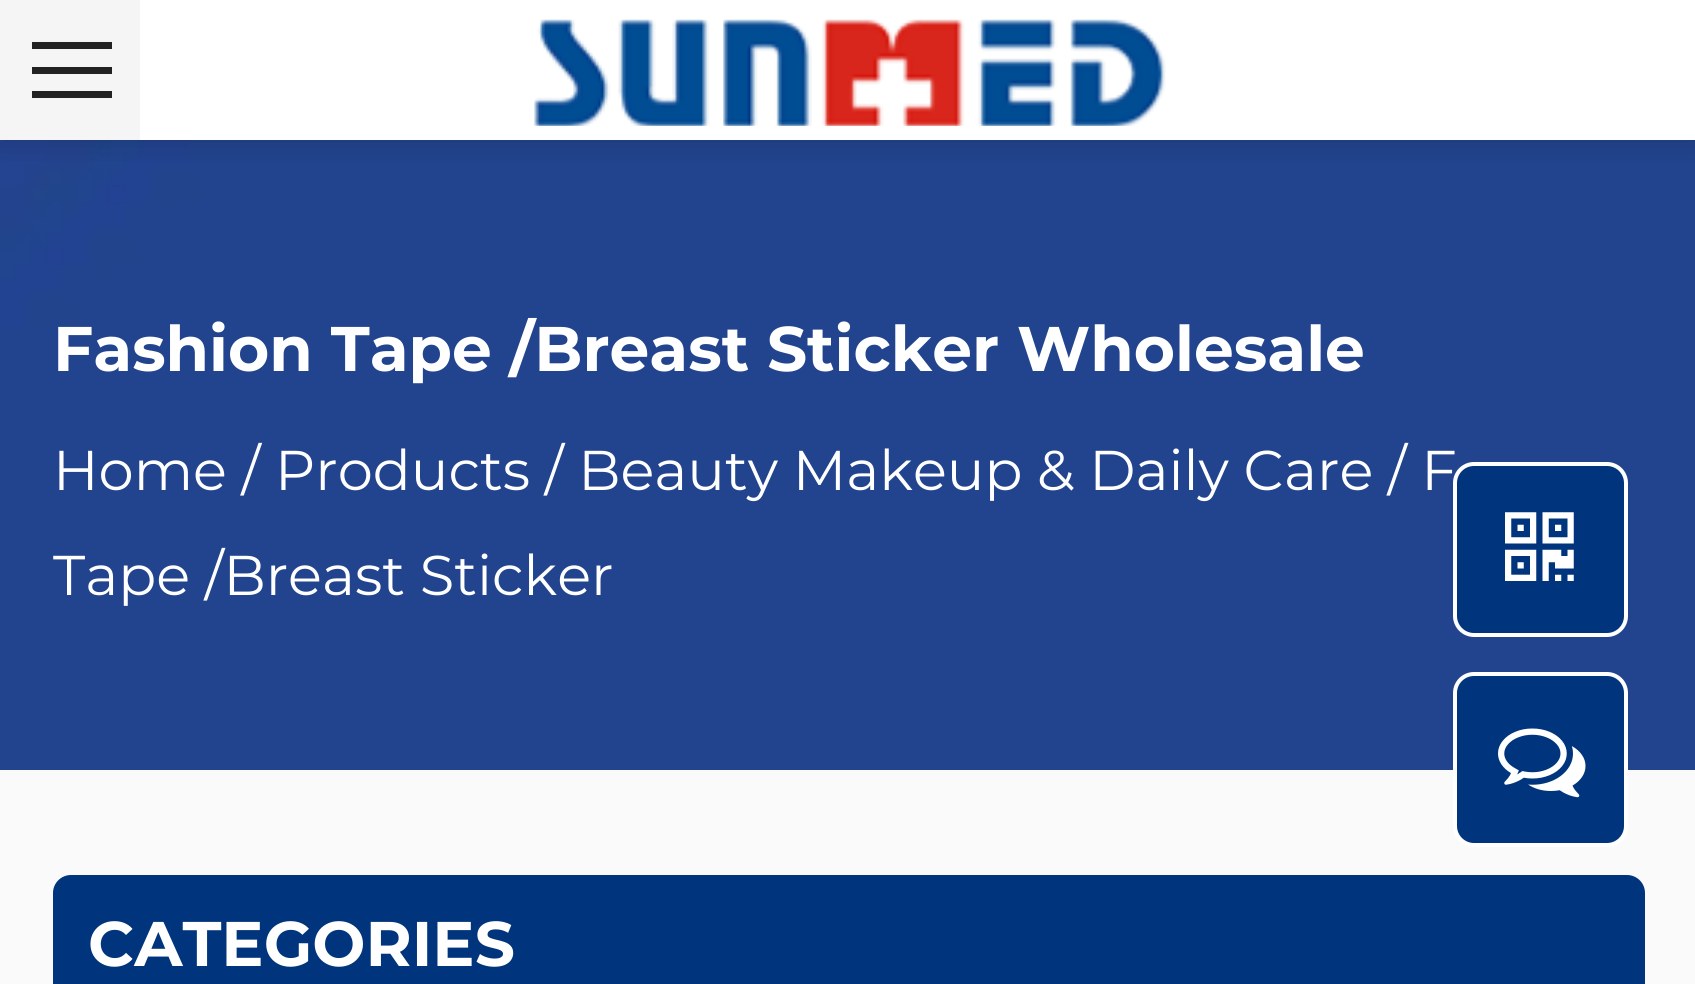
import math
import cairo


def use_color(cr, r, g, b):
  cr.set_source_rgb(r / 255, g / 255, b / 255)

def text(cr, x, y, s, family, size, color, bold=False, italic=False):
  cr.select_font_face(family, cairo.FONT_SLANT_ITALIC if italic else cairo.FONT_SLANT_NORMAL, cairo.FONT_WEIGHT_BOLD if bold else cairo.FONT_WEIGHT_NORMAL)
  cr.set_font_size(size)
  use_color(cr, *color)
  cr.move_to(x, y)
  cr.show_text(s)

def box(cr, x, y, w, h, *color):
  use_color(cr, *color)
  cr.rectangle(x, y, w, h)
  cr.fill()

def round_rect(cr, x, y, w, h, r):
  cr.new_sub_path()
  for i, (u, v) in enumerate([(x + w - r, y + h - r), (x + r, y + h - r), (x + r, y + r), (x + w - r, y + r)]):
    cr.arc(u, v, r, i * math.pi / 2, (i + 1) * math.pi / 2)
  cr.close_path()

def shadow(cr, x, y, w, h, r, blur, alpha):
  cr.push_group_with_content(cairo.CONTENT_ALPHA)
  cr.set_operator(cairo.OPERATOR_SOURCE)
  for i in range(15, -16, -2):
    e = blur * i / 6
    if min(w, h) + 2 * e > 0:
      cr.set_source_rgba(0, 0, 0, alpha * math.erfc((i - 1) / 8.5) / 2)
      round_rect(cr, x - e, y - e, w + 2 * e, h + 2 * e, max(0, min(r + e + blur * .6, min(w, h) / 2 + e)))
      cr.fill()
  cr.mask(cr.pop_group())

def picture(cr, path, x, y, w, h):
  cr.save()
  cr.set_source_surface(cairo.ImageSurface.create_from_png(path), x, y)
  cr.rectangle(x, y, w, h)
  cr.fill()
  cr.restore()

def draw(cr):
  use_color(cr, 255, 255, 255)
  cr.paint()
  picture(cr, "img_02.png", 0, 140, 1695, 630)
  cr.save()
  cr.rectangle(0, 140, 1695, 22)
  cr.clip()
  use_color(cr, 0, 0, 0)
  shadow(cr, 0, 0, 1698, 140, 0, 17.5, 0.2)
  cr.restore()
  picture(cr, "img_01.png", 534, 19, 632, 107)
  box(cr, 0, 0, 140, 140, 245, 245, 245)
  box(cr, 32, 42, 80, 7, 34, 34, 34)
  box(cr, 32, 67, 80, 7, 34, 34, 34)
  box(cr, 32, 91, 80, 7, 34, 34, 34)
  box(cr, 0, 770, 1695, 214, 250, 250, 250)
  use_color(cr, 0, 53, 126)
  round_rect(cr, 1455, 674, 171, 171, 19)
  cr.fill_preserve()
  use_color(cr, 255, 255, 255)
  cr.set_line_width(4)
  cr.stroke()
  picture(cr, "img_04.png", 1498, 728, 88, 70)
  use_color(cr, 0, 53, 126)
  round_rect(cr, 53, 875, 1592, 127, 18)
  cr.fill()
  text(cr, 53, 371, "Fashion Tape /Breast Sticker Wholesale", "Montserrat", 63, (255, 255, 255), bold=True)
  text(cr, 53, 490, "Home / Products / Beauty Makeup & Daily Care / F", "Montserrat", 56, (255, 255, 255))
  text(cr, 53, 595, "Tape /Breast Sticker", "Montserrat", 56, (255, 255, 255))
  use_color(cr, 0, 53, 126)
  round_rect(cr, 1455, 464, 171, 171, 19)
  cr.fill_preserve()
  use_color(cr, 255, 255, 255)
  cr.stroke()
  picture(cr, "img_03.png", 1505, 512, 69, 69)
  text(cr, 88, 966, "CATEGORIES", "Montserrat", 63, (255, 255, 255), bold=True)


surface = cairo.ImageSurface(cairo.FORMAT_RGB24, 1695, 984)
cr = cairo.Context(surface)
options = cairo.FontOptions()
options.set_hint_metrics(cairo.HINT_METRICS_OFF)
options.set_hint_style(cairo.HINT_STYLE_NONE)
cr.set_font_options(options)
cr.set_miter_limit(4)
draw(cr)
surface.write_to_png("out.png")
